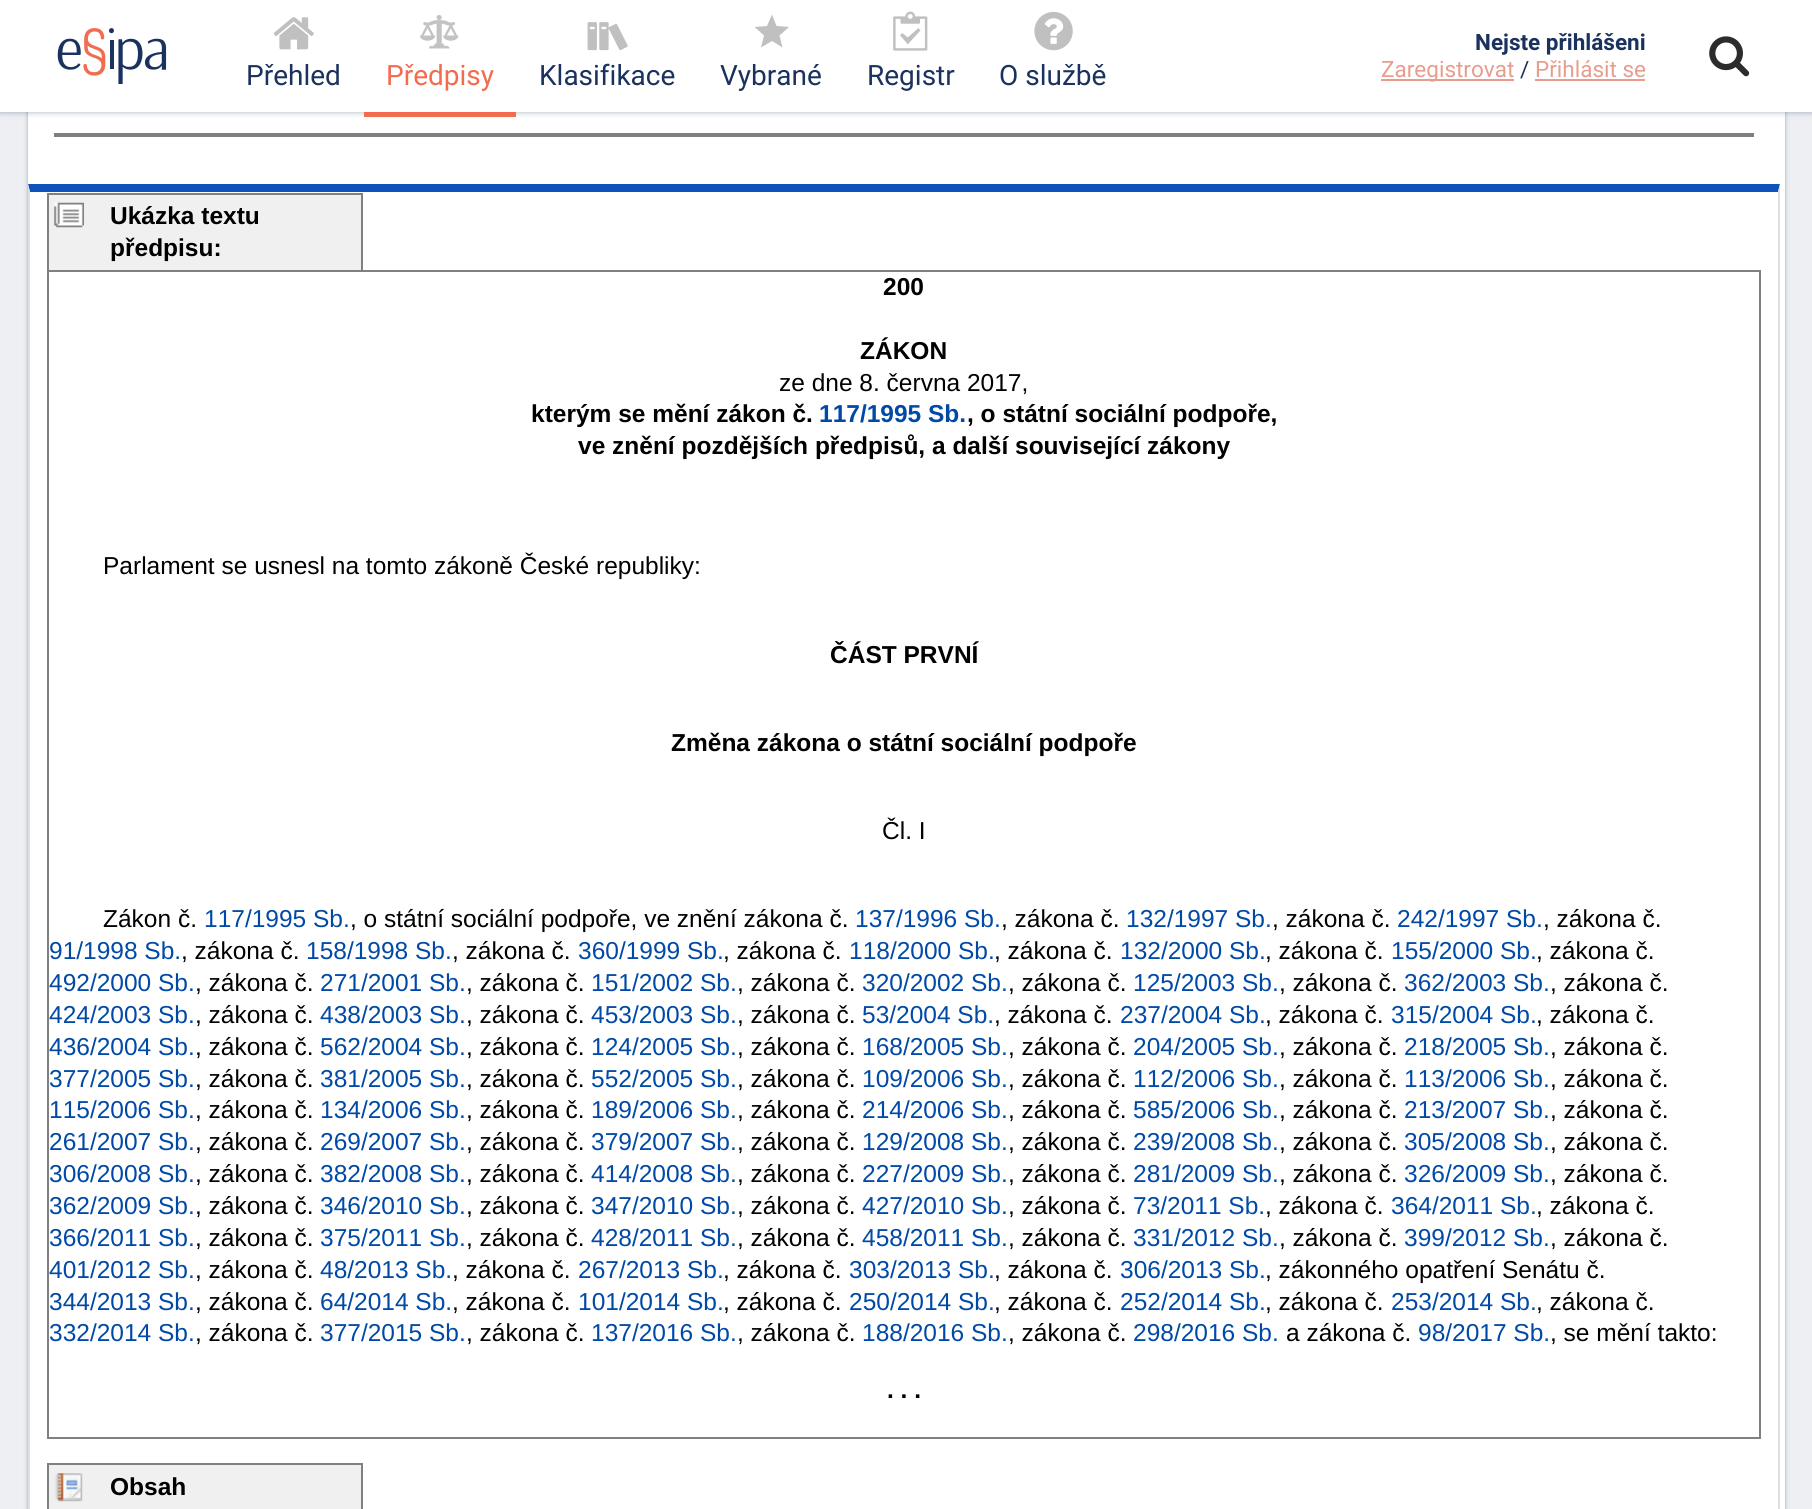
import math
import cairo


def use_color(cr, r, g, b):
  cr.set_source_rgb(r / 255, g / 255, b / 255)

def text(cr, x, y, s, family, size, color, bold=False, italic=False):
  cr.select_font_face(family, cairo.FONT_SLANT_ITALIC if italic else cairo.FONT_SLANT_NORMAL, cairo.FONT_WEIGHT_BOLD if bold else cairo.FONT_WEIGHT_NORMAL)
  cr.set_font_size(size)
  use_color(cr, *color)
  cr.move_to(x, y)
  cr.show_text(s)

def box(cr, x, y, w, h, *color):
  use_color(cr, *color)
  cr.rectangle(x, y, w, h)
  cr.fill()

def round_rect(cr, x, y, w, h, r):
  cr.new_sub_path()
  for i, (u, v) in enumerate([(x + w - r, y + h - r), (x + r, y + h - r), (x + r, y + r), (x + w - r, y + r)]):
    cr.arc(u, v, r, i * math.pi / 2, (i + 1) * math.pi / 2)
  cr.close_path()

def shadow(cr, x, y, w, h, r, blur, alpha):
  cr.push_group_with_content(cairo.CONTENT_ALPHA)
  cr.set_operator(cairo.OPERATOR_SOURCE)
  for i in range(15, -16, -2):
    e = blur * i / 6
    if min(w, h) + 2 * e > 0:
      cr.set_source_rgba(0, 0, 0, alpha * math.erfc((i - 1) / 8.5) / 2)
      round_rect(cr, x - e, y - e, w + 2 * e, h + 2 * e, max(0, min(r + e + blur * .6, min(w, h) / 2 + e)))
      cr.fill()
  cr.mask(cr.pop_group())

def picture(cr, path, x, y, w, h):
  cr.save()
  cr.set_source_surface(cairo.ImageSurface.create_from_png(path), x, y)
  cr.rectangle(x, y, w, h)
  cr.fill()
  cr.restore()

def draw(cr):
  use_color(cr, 237, 239, 242)
  cr.paint()
  use_color(cr, 27, 50, 95)
  shadow(cr, 28, -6, 1757, 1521, 0, 2, 0.4)
  box(cr, 28, 112, 1757, 1397, 255, 255, 255)
  use_color(cr, 27, 50, 95)
  shadow(cr, 0, 0, 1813, 112, 0, 3, 0.4)
  box(cr, 0, 0, 1812, 112, 255, 255, 255)
  picture(cr, "img_01.png", 57, 28, 110, 56)
  picture(cr, "img_02.png", 273, 17, 41, 33)
  box(cr, 364, 112, 152, 5, 242, 108, 79)
  picture(cr, "img_03.png", 420, 15, 39, 34)
  picture(cr, "img_04.png", 587, 22, 41, 29)
  use_color(cr, 192, 192, 192)
  cr.new_path()
  cr.move_to(772, 41)
  cr.line_to(761, 47.5)
  cr.line_to(764, 35.5)
  cr.line_to(754.5, 27)
  cr.line_to(767, 26)
  cr.line_to(772, 14.5)
  cr.line_to(776.5, 26)
  cr.line_to(789, 27)
  cr.line_to(779.5, 35.5)
  cr.line_to(782.5, 47.5)
  cr.close_path()
  cr.fill()
  picture(cr, "img_05.png", 893, 11, 35, 40)
  picture(cr, "img_06.png", 1034, 11, 39, 40)
  box(cr, 1381, 79, 133, 2, 232, 157, 140)
  box(cr, 1535, 79, 110, 2, 232, 157, 140)
  picture(cr, "img_07.png", 1709, 36, 41, 41)
  box(cr, 54, 133, 1700, 4, 128, 128, 128)
  use_color(cr, 14, 83, 187)
  cr.new_path()
  cr.move_to(28, 184)
  cr.line_to(1780, 184)
  cr.line_to(1778, 192)
  cr.line_to(30, 192)
  cr.close_path()
  cr.fill()
  use_color(cr, 223, 223, 223)
  cr.new_path()
  cr.move_to(1780, 184)
  cr.line_to(1780, 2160)
  cr.line_to(1778, 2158)
  cr.line_to(1778, 192)
  cr.close_path()
  cr.fill()
  cr.new_path()
  cr.move_to(28, 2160)
  cr.line_to(28, 184)
  cr.line_to(30, 192)
  cr.line_to(30, 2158)
  cr.close_path()
  cr.fill()
  box(cr, 49, 195, 312, 75, 240, 240, 240)
  picture(cr, "img_08.png", 54, 202, 30, 26)
  box(cr, 47, 193, 315, 2, 128, 128, 128)
  box(cr, 361, 193, 2, 77, 128, 128, 128)
  box(cr, 47, 193, 2, 77, 128, 128, 128)
  cr.rectangle(48, 271, 1712, 1167)
  cr.stroke()
  box(cr, 49, 1465, 312, 44, 240, 240, 240)
  picture(cr, "img_09.png", 54, 1473, 29, 29)
  box(cr, 47, 1463, 315, 2, 128, 128, 128)
  box(cr, 361, 1463, 2, 46, 128, 128, 128)
  box(cr, 47, 1463, 2, 46, 128, 128, 128)
  text(cr, 246, 85, "Přehled", "Roboto", 28, (27, 50, 95))
  text(cr, 386, 85, "Předpisy", "Roboto", 28, (242, 108, 79))
  text(cr, 539, 85, "Klasifikace", "Roboto", 28, (27, 50, 95))
  text(cr, 720, 85, "Vybrané", "Roboto", 28, (27, 50, 95))
  text(cr, 867, 85, "Registr", "Roboto", 28, (27, 50, 95))
  text(cr, 999, 85, "O službě", "Roboto", 28, (27, 50, 95))
  text(cr, 1475, 50, "Nejste přihlášeni", "Roboto", 22.5, (27, 50, 95), bold=True)
  text(cr, 1381, 77, "Zaregistrovat", "Roboto", 22.5, (232, 157, 140))
  text(cr, 1520, 77, "/", "Roboto", 22.5, (27, 50, 95))
  text(cr, 1535, 77, "Přihlásit se", "Roboto", 22.5, (232, 157, 140))
  text(cr, 110, 224, "Ukázka textu", "Liberation Sans", 24.5, (0, 0, 0), bold=True)
  text(cr, 110, 256, "předpisu:", "Liberation Sans", 24.5, (0, 0, 0), bold=True)
  text(cr, 883, 295, "200", "Liberation Sans", 24.5, (0, 0, 0), bold=True)
  text(cr, 860, 359, "ZÁKON", "Liberation Sans", 24.5, (0, 0, 0), bold=True)
  text(cr, 779, 391, "ze dne 8. června 2017,", "Liberation Sans", 24.5, (0, 0, 0))
  text(cr, 531, 422, "kterým se mění zákon č.", "Liberation Sans", 24.5, (0, 0, 0), bold=True)
  text(cr, 819, 422, "117/1995 Sb.", "Liberation Sans", 24.5, (0, 73, 167), bold=True)
  text(cr, 967, 422, ", o státní sociální podpoře,", "Liberation Sans", 24.5, (0, 0, 0), bold=True)
  text(cr, 578, 454, "ve znění pozdějších předpisů, a další související zákony", "Liberation Sans", 24.5, (0, 0, 0), bold=True)
  text(cr, 103, 574, "Parlament se usnesl na tomto zákoně České republiky:", "Liberation Sans", 24.5, (0, 0, 0))
  text(cr, 830, 663, "ČÁST PRVNÍ", "Liberation Sans", 24.5, (0, 0, 0), bold=True)
  text(cr, 671, 751, "Změna zákona o státní sociální podpoře", "Liberation Sans", 24.5, (0, 0, 0), bold=True)
  text(cr, 882, 839, "Čl. I", "Liberation Sans", 24.5, (0, 0, 0))
  text(cr, 103, 927, "Zákon č.", "Liberation Sans", 24.5, (0, 0, 0))
  text(cr, 204, 927, "117/1995 Sb.", "Liberation Sans", 24.5, (0, 73, 167))
  text(cr, 350, 927, ", o státní sociální podpoře, ve znění zákona č.", "Liberation Sans", 24.5, (0, 0, 0))
  text(cr, 855, 927, "137/1996 Sb.", "Liberation Sans", 24.5, (0, 73, 167))
  text(cr, 1001, 927, ", zákona č.", "Liberation Sans", 24.5, (0, 0, 0))
  text(cr, 1126, 927, "132/1997 Sb.", "Liberation Sans", 24.5, (0, 73, 167))
  text(cr, 1272, 927, ", zákona č.", "Liberation Sans", 24.5, (0, 0, 0))
  text(cr, 1397, 927, "242/1997 Sb.", "Liberation Sans", 24.5, (0, 73, 167))
  text(cr, 1543, 927, ", zákona č.", "Liberation Sans", 24.5, (0, 0, 0))
  text(cr, 49, 959, "91/1998 Sb.", "Liberation Sans", 24.5, (0, 73, 167))
  text(cr, 181, 959, ", zákona č.", "Liberation Sans", 24.5, (0, 0, 0))
  text(cr, 306, 959, "158/1998 Sb.", "Liberation Sans", 24.5, (0, 73, 167))
  text(cr, 452, 959, ", zákona č.", "Liberation Sans", 24.5, (0, 0, 0))
  text(cr, 578, 959, "360/1999 Sb.", "Liberation Sans", 24.5, (0, 73, 167))
  text(cr, 723, 959, ", zákona č.", "Liberation Sans", 24.5, (0, 0, 0))
  text(cr, 849, 959, "118/2000 Sb.", "Liberation Sans", 24.5, (0, 73, 167))
  text(cr, 994, 959, ", zákona č.", "Liberation Sans", 24.5, (0, 0, 0))
  text(cr, 1120, 959, "132/2000 Sb.", "Liberation Sans", 24.5, (0, 73, 167))
  text(cr, 1265, 959, ", zákona č.", "Liberation Sans", 24.5, (0, 0, 0))
  text(cr, 1391, 959, "155/2000 Sb.", "Liberation Sans", 24.5, (0, 73, 167))
  text(cr, 1536, 959, ", zákona č.", "Liberation Sans", 24.5, (0, 0, 0))
  text(cr, 49, 991, "492/2000 Sb.", "Liberation Sans", 24.5, (0, 73, 167))
  text(cr, 195, 991, ", zákona č.", "Liberation Sans", 24.5, (0, 0, 0))
  text(cr, 320, 991, "271/2001 Sb.", "Liberation Sans", 24.5, (0, 73, 167))
  text(cr, 466, 991, ", zákona č.", "Liberation Sans", 24.5, (0, 0, 0))
  text(cr, 591, 991, "151/2002 Sb.", "Liberation Sans", 24.5, (0, 73, 167))
  text(cr, 737, 991, ", zákona č.", "Liberation Sans", 24.5, (0, 0, 0))
  text(cr, 862, 991, "320/2002 Sb.", "Liberation Sans", 24.5, (0, 73, 167))
  text(cr, 1008, 991, ", zákona č.", "Liberation Sans", 24.5, (0, 0, 0))
  text(cr, 1133, 991, "125/2003 Sb.", "Liberation Sans", 24.5, (0, 73, 167))
  text(cr, 1279, 991, ", zákona č.", "Liberation Sans", 24.5, (0, 0, 0))
  text(cr, 1404, 991, "362/2003 Sb.", "Liberation Sans", 24.5, (0, 73, 167))
  text(cr, 1550, 991, ", zákona č.", "Liberation Sans", 24.5, (0, 0, 0))
  text(cr, 49, 1023, "424/2003 Sb.", "Liberation Sans", 24.5, (0, 73, 167))
  text(cr, 195, 1023, ", zákona č.", "Liberation Sans", 24.5, (0, 0, 0))
  text(cr, 320, 1023, "438/2003 Sb.", "Liberation Sans", 24.5, (0, 73, 167))
  text(cr, 466, 1023, ", zákona č.", "Liberation Sans", 24.5, (0, 0, 0))
  text(cr, 591, 1023, "453/2003 Sb.", "Liberation Sans", 24.5, (0, 73, 167))
  text(cr, 737, 1023, ", zákona č.", "Liberation Sans", 24.5, (0, 0, 0))
  text(cr, 862, 1023, "53/2004 Sb.", "Liberation Sans", 24.5, (0, 73, 167))
  text(cr, 994, 1023, ", zákona č.", "Liberation Sans", 24.5, (0, 0, 0))
  text(cr, 1120, 1023, "237/2004 Sb.", "Liberation Sans", 24.5, (0, 73, 167))
  text(cr, 1265, 1023, ", zákona č.", "Liberation Sans", 24.5, (0, 0, 0))
  text(cr, 1391, 1023, "315/2004 Sb.", "Liberation Sans", 24.5, (0, 73, 167))
  text(cr, 1536, 1023, ", zákona č.", "Liberation Sans", 24.5, (0, 0, 0))
  text(cr, 49, 1055, "436/2004 Sb.", "Liberation Sans", 24.5, (0, 73, 167))
  text(cr, 195, 1055, ", zákona č.", "Liberation Sans", 24.5, (0, 0, 0))
  text(cr, 320, 1055, "562/2004 Sb.", "Liberation Sans", 24.5, (0, 73, 167))
  text(cr, 466, 1055, ", zákona č.", "Liberation Sans", 24.5, (0, 0, 0))
  text(cr, 591, 1055, "124/2005 Sb.", "Liberation Sans", 24.5, (0, 73, 167))
  text(cr, 737, 1055, ", zákona č.", "Liberation Sans", 24.5, (0, 0, 0))
  text(cr, 862, 1055, "168/2005 Sb.", "Liberation Sans", 24.5, (0, 73, 167))
  text(cr, 1008, 1055, ", zákona č.", "Liberation Sans", 24.5, (0, 0, 0))
  text(cr, 1133, 1055, "204/2005 Sb.", "Liberation Sans", 24.5, (0, 73, 167))
  text(cr, 1279, 1055, ", zákona č.", "Liberation Sans", 24.5, (0, 0, 0))
  text(cr, 1404, 1055, "218/2005 Sb.", "Liberation Sans", 24.5, (0, 73, 167))
  text(cr, 1550, 1055, ", zákona č.", "Liberation Sans", 24.5, (0, 0, 0))
  text(cr, 49, 1087, "377/2005 Sb.", "Liberation Sans", 24.5, (0, 73, 167))
  text(cr, 195, 1087, ", zákona č.", "Liberation Sans", 24.5, (0, 0, 0))
  text(cr, 320, 1087, "381/2005 Sb.", "Liberation Sans", 24.5, (0, 73, 167))
  text(cr, 466, 1087, ", zákona č.", "Liberation Sans", 24.5, (0, 0, 0))
  text(cr, 591, 1087, "552/2005 Sb.", "Liberation Sans", 24.5, (0, 73, 167))
  text(cr, 737, 1087, ", zákona č.", "Liberation Sans", 24.5, (0, 0, 0))
  text(cr, 862, 1087, "109/2006 Sb.", "Liberation Sans", 24.5, (0, 73, 167))
  text(cr, 1008, 1087, ", zákona č.", "Liberation Sans", 24.5, (0, 0, 0))
  text(cr, 1133, 1087, "112/2006 Sb.", "Liberation Sans", 24.5, (0, 73, 167))
  text(cr, 1279, 1087, ", zákona č.", "Liberation Sans", 24.5, (0, 0, 0))
  text(cr, 1404, 1087, "113/2006 Sb.", "Liberation Sans", 24.5, (0, 73, 167))
  text(cr, 1550, 1087, ", zákona č.", "Liberation Sans", 24.5, (0, 0, 0))
  text(cr, 49, 1118, "115/2006 Sb.", "Liberation Sans", 24.5, (0, 73, 167))
  text(cr, 195, 1118, ", zákona č.", "Liberation Sans", 24.5, (0, 0, 0))
  text(cr, 320, 1118, "134/2006 Sb.", "Liberation Sans", 24.5, (0, 73, 167))
  text(cr, 466, 1118, ", zákona č.", "Liberation Sans", 24.5, (0, 0, 0))
  text(cr, 591, 1118, "189/2006 Sb.", "Liberation Sans", 24.5, (0, 73, 167))
  text(cr, 737, 1118, ", zákona č.", "Liberation Sans", 24.5, (0, 0, 0))
  text(cr, 862, 1118, "214/2006 Sb.", "Liberation Sans", 24.5, (0, 73, 167))
  text(cr, 1008, 1118, ", zákona č.", "Liberation Sans", 24.5, (0, 0, 0))
  text(cr, 1133, 1118, "585/2006 Sb.", "Liberation Sans", 24.5, (0, 73, 167))
  text(cr, 1279, 1118, ", zákona č.", "Liberation Sans", 24.5, (0, 0, 0))
  text(cr, 1404, 1118, "213/2007 Sb.", "Liberation Sans", 24.5, (0, 73, 167))
  text(cr, 1550, 1118, ", zákona č.", "Liberation Sans", 24.5, (0, 0, 0))
  text(cr, 49, 1150, "261/2007 Sb.", "Liberation Sans", 24.5, (0, 73, 167))
  text(cr, 195, 1150, ", zákona č.", "Liberation Sans", 24.5, (0, 0, 0))
  text(cr, 320, 1150, "269/2007 Sb.", "Liberation Sans", 24.5, (0, 73, 167))
  text(cr, 466, 1150, ", zákona č.", "Liberation Sans", 24.5, (0, 0, 0))
  text(cr, 591, 1150, "379/2007 Sb.", "Liberation Sans", 24.5, (0, 73, 167))
  text(cr, 737, 1150, ", zákona č.", "Liberation Sans", 24.5, (0, 0, 0))
  text(cr, 862, 1150, "129/2008 Sb.", "Liberation Sans", 24.5, (0, 73, 167))
  text(cr, 1008, 1150, ", zákona č.", "Liberation Sans", 24.5, (0, 0, 0))
  text(cr, 1133, 1150, "239/2008 Sb.", "Liberation Sans", 24.5, (0, 73, 167))
  text(cr, 1279, 1150, ", zákona č.", "Liberation Sans", 24.5, (0, 0, 0))
  text(cr, 1404, 1150, "305/2008 Sb.", "Liberation Sans", 24.5, (0, 73, 167))
  text(cr, 1550, 1150, ", zákona č.", "Liberation Sans", 24.5, (0, 0, 0))
  text(cr, 49, 1182, "306/2008 Sb.", "Liberation Sans", 24.5, (0, 73, 167))
  text(cr, 195, 1182, ", zákona č.", "Liberation Sans", 24.5, (0, 0, 0))
  text(cr, 320, 1182, "382/2008 Sb.", "Liberation Sans", 24.5, (0, 73, 167))
  text(cr, 466, 1182, ", zákona č.", "Liberation Sans", 24.5, (0, 0, 0))
  text(cr, 591, 1182, "414/2008 Sb.", "Liberation Sans", 24.5, (0, 73, 167))
  text(cr, 737, 1182, ", zákona č.", "Liberation Sans", 24.5, (0, 0, 0))
  text(cr, 862, 1182, "227/2009 Sb.", "Liberation Sans", 24.5, (0, 73, 167))
  text(cr, 1008, 1182, ", zákona č.", "Liberation Sans", 24.5, (0, 0, 0))
  text(cr, 1133, 1182, "281/2009 Sb.", "Liberation Sans", 24.5, (0, 73, 167))
  text(cr, 1279, 1182, ", zákona č.", "Liberation Sans", 24.5, (0, 0, 0))
  text(cr, 1404, 1182, "326/2009 Sb.", "Liberation Sans", 24.5, (0, 73, 167))
  text(cr, 1550, 1182, ", zákona č.", "Liberation Sans", 24.5, (0, 0, 0))
  text(cr, 49, 1214, "362/2009 Sb.", "Liberation Sans", 24.5, (0, 73, 167))
  text(cr, 195, 1214, ", zákona č.", "Liberation Sans", 24.5, (0, 0, 0))
  text(cr, 320, 1214, "346/2010 Sb.", "Liberation Sans", 24.5, (0, 73, 167))
  text(cr, 466, 1214, ", zákona č.", "Liberation Sans", 24.5, (0, 0, 0))
  text(cr, 591, 1214, "347/2010 Sb.", "Liberation Sans", 24.5, (0, 73, 167))
  text(cr, 737, 1214, ", zákona č.", "Liberation Sans", 24.5, (0, 0, 0))
  text(cr, 862, 1214, "427/2010 Sb.", "Liberation Sans", 24.5, (0, 73, 167))
  text(cr, 1008, 1214, ", zákona č.", "Liberation Sans", 24.5, (0, 0, 0))
  text(cr, 1133, 1214, "73/2011 Sb.", "Liberation Sans", 24.5, (0, 73, 167))
  text(cr, 1265, 1214, ", zákona č.", "Liberation Sans", 24.5, (0, 0, 0))
  text(cr, 1391, 1214, "364/2011 Sb.", "Liberation Sans", 24.5, (0, 73, 167))
  text(cr, 1536, 1214, ", zákona č.", "Liberation Sans", 24.5, (0, 0, 0))
  text(cr, 49, 1246, "366/2011 Sb.", "Liberation Sans", 24.5, (0, 73, 167))
  text(cr, 195, 1246, ", zákona č.", "Liberation Sans", 24.5, (0, 0, 0))
  text(cr, 320, 1246, "375/2011 Sb.", "Liberation Sans", 24.5, (0, 73, 167))
  text(cr, 466, 1246, ", zákona č.", "Liberation Sans", 24.5, (0, 0, 0))
  text(cr, 591, 1246, "428/2011 Sb.", "Liberation Sans", 24.5, (0, 73, 167))
  text(cr, 737, 1246, ", zákona č.", "Liberation Sans", 24.5, (0, 0, 0))
  text(cr, 862, 1246, "458/2011 Sb.", "Liberation Sans", 24.5, (0, 73, 167))
  text(cr, 1008, 1246, ", zákona č.", "Liberation Sans", 24.5, (0, 0, 0))
  text(cr, 1133, 1246, "331/2012 Sb.", "Liberation Sans", 24.5, (0, 73, 167))
  text(cr, 1279, 1246, ", zákona č.", "Liberation Sans", 24.5, (0, 0, 0))
  text(cr, 1404, 1246, "399/2012 Sb.", "Liberation Sans", 24.5, (0, 73, 167))
  text(cr, 1550, 1246, ", zákona č.", "Liberation Sans", 24.5, (0, 0, 0))
  text(cr, 49, 1278, "401/2012 Sb.", "Liberation Sans", 24.5, (0, 73, 167))
  text(cr, 195, 1278, ", zákona č.", "Liberation Sans", 24.5, (0, 0, 0))
  text(cr, 320, 1278, "48/2013 Sb.", "Liberation Sans", 24.5, (0, 73, 167))
  text(cr, 452, 1278, ", zákona č.", "Liberation Sans", 24.5, (0, 0, 0))
  text(cr, 578, 1278, "267/2013 Sb.", "Liberation Sans", 24.5, (0, 73, 167))
  text(cr, 723, 1278, ", zákona č.", "Liberation Sans", 24.5, (0, 0, 0))
  text(cr, 849, 1278, "303/2013 Sb.", "Liberation Sans", 24.5, (0, 73, 167))
  text(cr, 994, 1278, ", zákona č.", "Liberation Sans", 24.5, (0, 0, 0))
  text(cr, 1120, 1278, "306/2013 Sb.", "Liberation Sans", 24.5, (0, 73, 167))
  text(cr, 1265, 1278, ", zákonného opatření Senátu č.", "Liberation Sans", 24.5, (0, 0, 0))
  text(cr, 49, 1310, "344/2013 Sb.", "Liberation Sans", 24.5, (0, 73, 167))
  text(cr, 195, 1310, ", zákona č.", "Liberation Sans", 24.5, (0, 0, 0))
  text(cr, 320, 1310, "64/2014 Sb.", "Liberation Sans", 24.5, (0, 73, 167))
  text(cr, 452, 1310, ", zákona č.", "Liberation Sans", 24.5, (0, 0, 0))
  text(cr, 578, 1310, "101/2014 Sb.", "Liberation Sans", 24.5, (0, 73, 167))
  text(cr, 723, 1310, ", zákona č.", "Liberation Sans", 24.5, (0, 0, 0))
  text(cr, 849, 1310, "250/2014 Sb.", "Liberation Sans", 24.5, (0, 73, 167))
  text(cr, 994, 1310, ", zákona č.", "Liberation Sans", 24.5, (0, 0, 0))
  text(cr, 1120, 1310, "252/2014 Sb.", "Liberation Sans", 24.5, (0, 73, 167))
  text(cr, 1265, 1310, ", zákona č.", "Liberation Sans", 24.5, (0, 0, 0))
  text(cr, 1391, 1310, "253/2014 Sb.", "Liberation Sans", 24.5, (0, 73, 167))
  text(cr, 1536, 1310, ", zákona č.", "Liberation Sans", 24.5, (0, 0, 0))
  text(cr, 49, 1341, "332/2014 Sb.", "Liberation Sans", 24.5, (0, 73, 167))
  text(cr, 195, 1341, ", zákona č.", "Liberation Sans", 24.5, (0, 0, 0))
  text(cr, 320, 1341, "377/2015 Sb.", "Liberation Sans", 24.5, (0, 73, 167))
  text(cr, 466, 1341, ", zákona č.", "Liberation Sans", 24.5, (0, 0, 0))
  text(cr, 591, 1341, "137/2016 Sb.", "Liberation Sans", 24.5, (0, 73, 167))
  text(cr, 737, 1341, ", zákona č.", "Liberation Sans", 24.5, (0, 0, 0))
  text(cr, 862, 1341, "188/2016 Sb.", "Liberation Sans", 24.5, (0, 73, 167))
  text(cr, 1008, 1341, ", zákona č.", "Liberation Sans", 24.5, (0, 0, 0))
  text(cr, 1133, 1341, "298/2016 Sb.", "Liberation Sans", 24.5, (0, 73, 167))
  text(cr, 1286, 1341, "a zákona č.", "Liberation Sans", 24.5, (0, 0, 0))
  text(cr, 1418, 1341, "98/2017 Sb.", "Liberation Sans", 24.5, (0, 73, 167))
  text(cr, 1550, 1341, ", se mění takto:", "Liberation Sans", 24.5, (0, 0, 0))
  text(cr, 887, 1398, ". . .", "Liberation Sans", 24.5, (0, 0, 0), bold=True)
  text(cr, 110, 1495, "Obsah", "Liberation Sans", 24.5, (0, 0, 0), bold=True)


surface = cairo.ImageSurface(cairo.FORMAT_RGB24, 1812, 1509)
cr = cairo.Context(surface)
options = cairo.FontOptions()
options.set_hint_metrics(cairo.HINT_METRICS_OFF)
options.set_hint_style(cairo.HINT_STYLE_NONE)
cr.set_font_options(options)
cr.set_miter_limit(4)
draw(cr)
surface.write_to_png("out.png")
